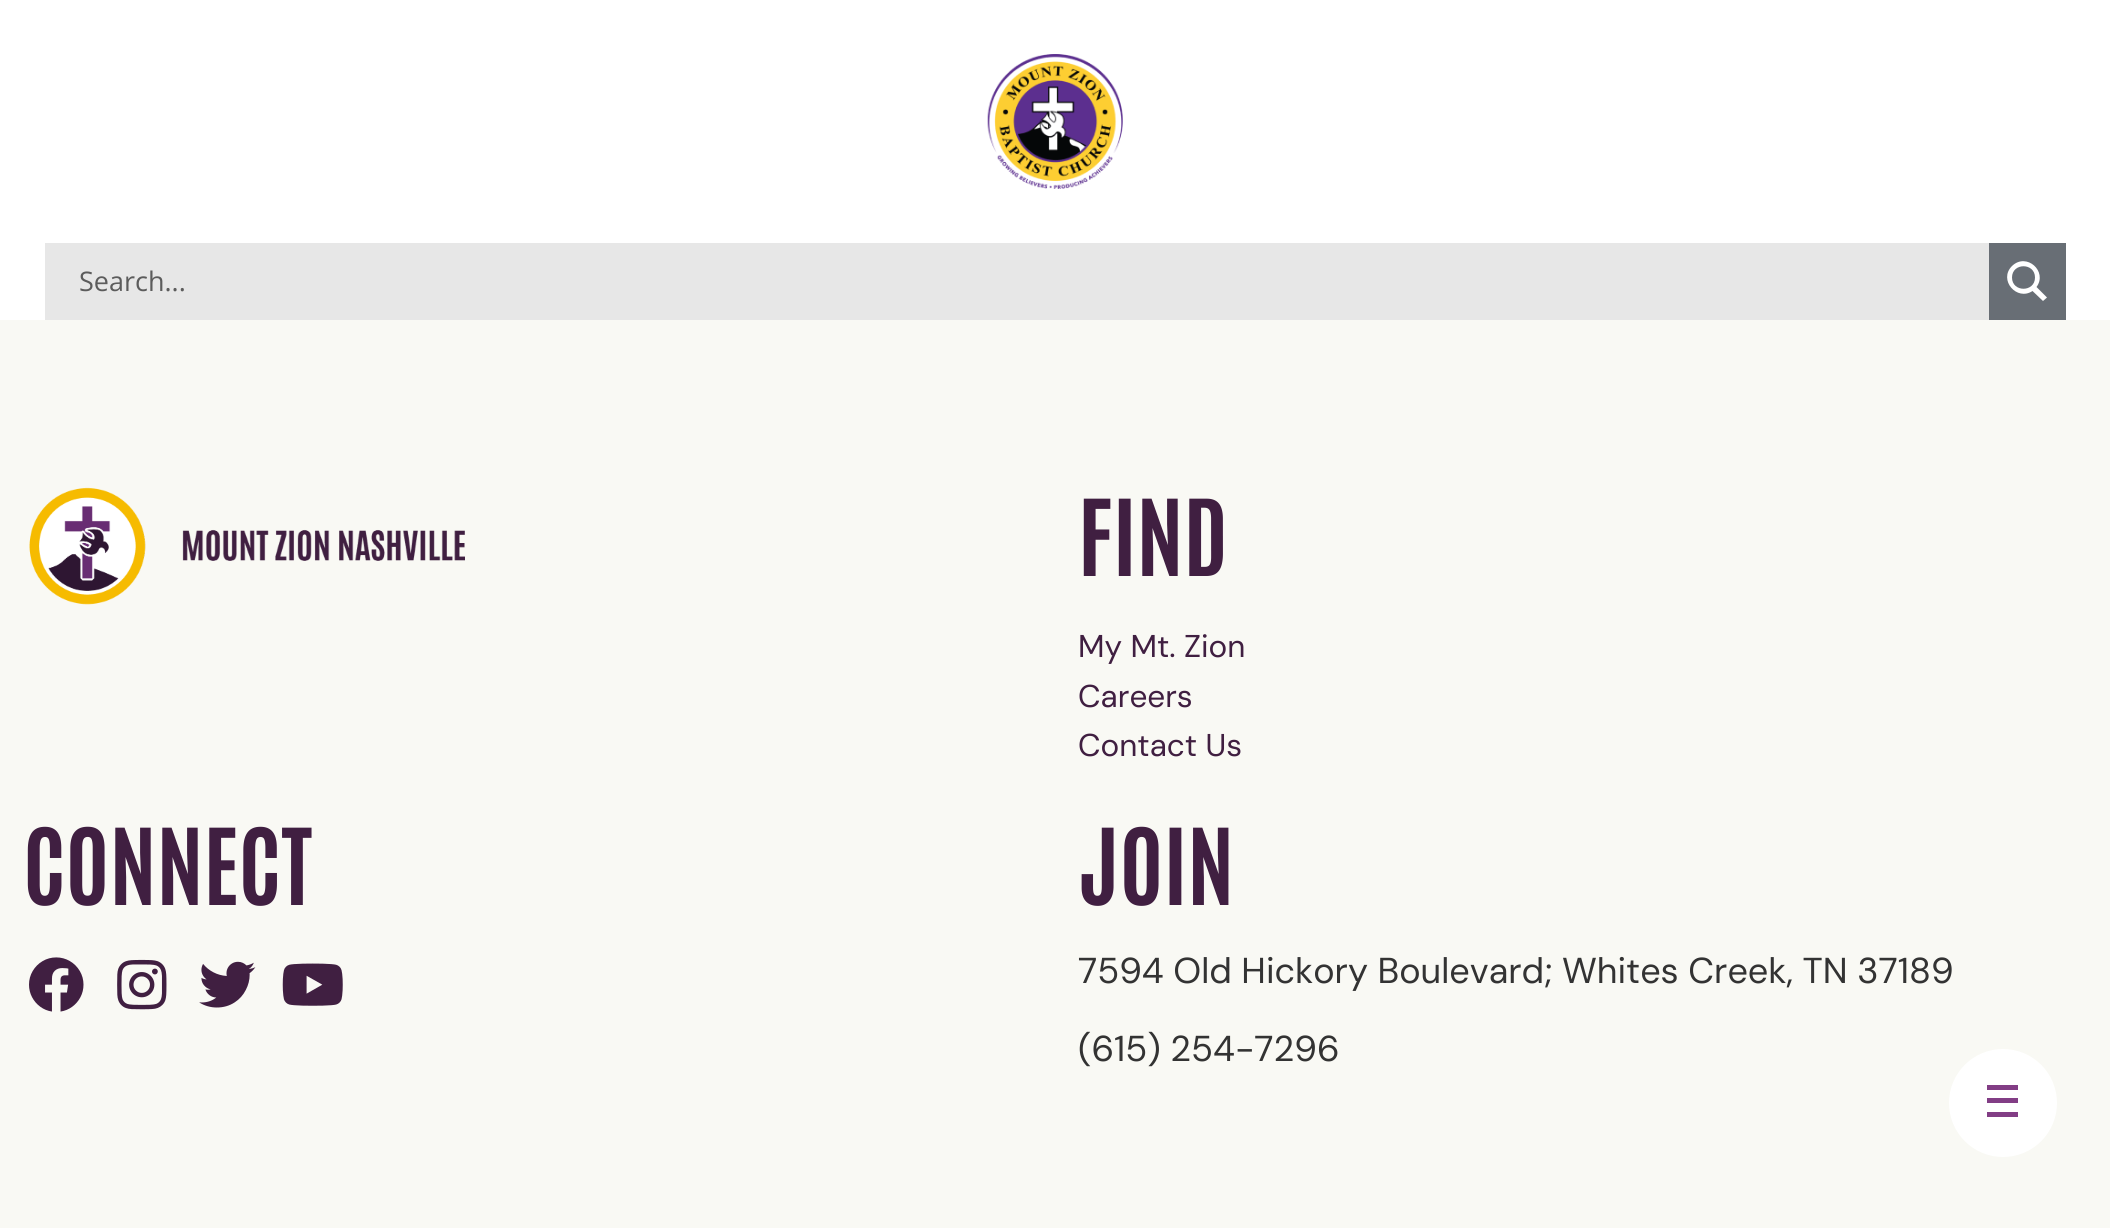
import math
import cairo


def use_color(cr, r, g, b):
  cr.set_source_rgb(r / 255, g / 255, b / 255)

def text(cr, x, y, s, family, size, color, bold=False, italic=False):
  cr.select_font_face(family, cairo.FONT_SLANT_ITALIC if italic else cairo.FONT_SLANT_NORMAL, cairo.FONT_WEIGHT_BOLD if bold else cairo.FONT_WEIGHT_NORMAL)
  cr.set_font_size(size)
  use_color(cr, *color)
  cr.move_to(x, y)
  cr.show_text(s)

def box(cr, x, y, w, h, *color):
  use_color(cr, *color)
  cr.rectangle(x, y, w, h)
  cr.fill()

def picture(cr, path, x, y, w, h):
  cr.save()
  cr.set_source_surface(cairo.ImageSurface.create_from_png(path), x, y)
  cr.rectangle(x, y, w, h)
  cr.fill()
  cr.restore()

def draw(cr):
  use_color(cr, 255, 255, 255)
  cr.paint()
  picture(cr, "img_01.png", 987, 54, 136, 135)
  box(cr, 45, 243, 1944, 77, 231, 231, 231)
  box(cr, 1989, 243, 77, 77, 104, 110, 117)
  use_color(cr, 255, 255, 255)
  cr.new_path()
  cr.move_to(2047, 297.5)
  cr.line_to(2036.5, 287)
  cr.curve_to(2048, 271.5, 2026.5, 252, 2012, 266)
  cr.curve_to(1998, 280, 2017, 301.5, 2032.5, 291)
  cr.line_to(2043, 301)
  cr.close_path()
  cr.move_to(2012, 277.5)
  cr.curve_to(2012, 262.5, 2035, 262.5, 2035, 277.5)
  cr.curve_to(2035, 292.5, 2012, 292.5, 2012, 277.5)
  cr.close_path()
  cr.fill()
  box(cr, 0, 320, 2110, 908, 249, 249, 244)
  picture(cr, "img_02.png", 29, 487, 436, 118)
  picture(cr, "img_03.png", 29, 957, 55, 55)
  picture(cr, "img_04.png", 117, 959, 50, 51)
  picture(cr, "img_05.png", 199, 961, 57, 47)
  picture(cr, "img_06.png", 282, 963, 61, 43)
  use_color(cr, 255, 255, 255)
  cr.arc(2003, 1103, 54, 0, 2 * math.pi)
  cr.fill()
  box(cr, 1987, 1098, 31, 5, 130, 61, 133)
  box(cr, 1987, 1085, 31, 5, 130, 61, 133)
  box(cr, 1987, 1112, 31, 5, 130, 61, 133)
  text(cr, 79, 291, "Search...", "Open Sans", 27, (92, 92, 92))
  text(cr, 1078, 576, "FIND", "Antonio", 90, (64, 31, 65), bold=True)
  text(cr, 1078, 657, "My Mt. Zion", "DM Sans", 31.5, (64, 31, 65))
  text(cr, 1078, 707, "Careers", "DM Sans", 31.5, (64, 31, 65))
  text(cr, 1078, 756, "Contact Us", "DM Sans", 31.5, (64, 31, 65))
  text(cr, 23, 905, "CONNECT", "Antonio", 90, (64, 31, 65), bold=True)
  text(cr, 1078, 905, "JOIN", "Antonio", 90, (64, 31, 65), bold=True)
  text(cr, 1078, 983, "7594 Old Hickory Boulevard; Whites Creek, TN 37189", "DM Sans", 36, (51, 51, 51))
  text(cr, 1078, 1061, "(615) 254-7296", "DM Sans", 36, (51, 51, 51))


surface = cairo.ImageSurface(cairo.FORMAT_RGB24, 2110, 1228)
cr = cairo.Context(surface)
options = cairo.FontOptions()
options.set_hint_metrics(cairo.HINT_METRICS_OFF)
options.set_hint_style(cairo.HINT_STYLE_NONE)
cr.set_font_options(options)
cr.set_miter_limit(4)
draw(cr)
surface.write_to_png("out.png")
